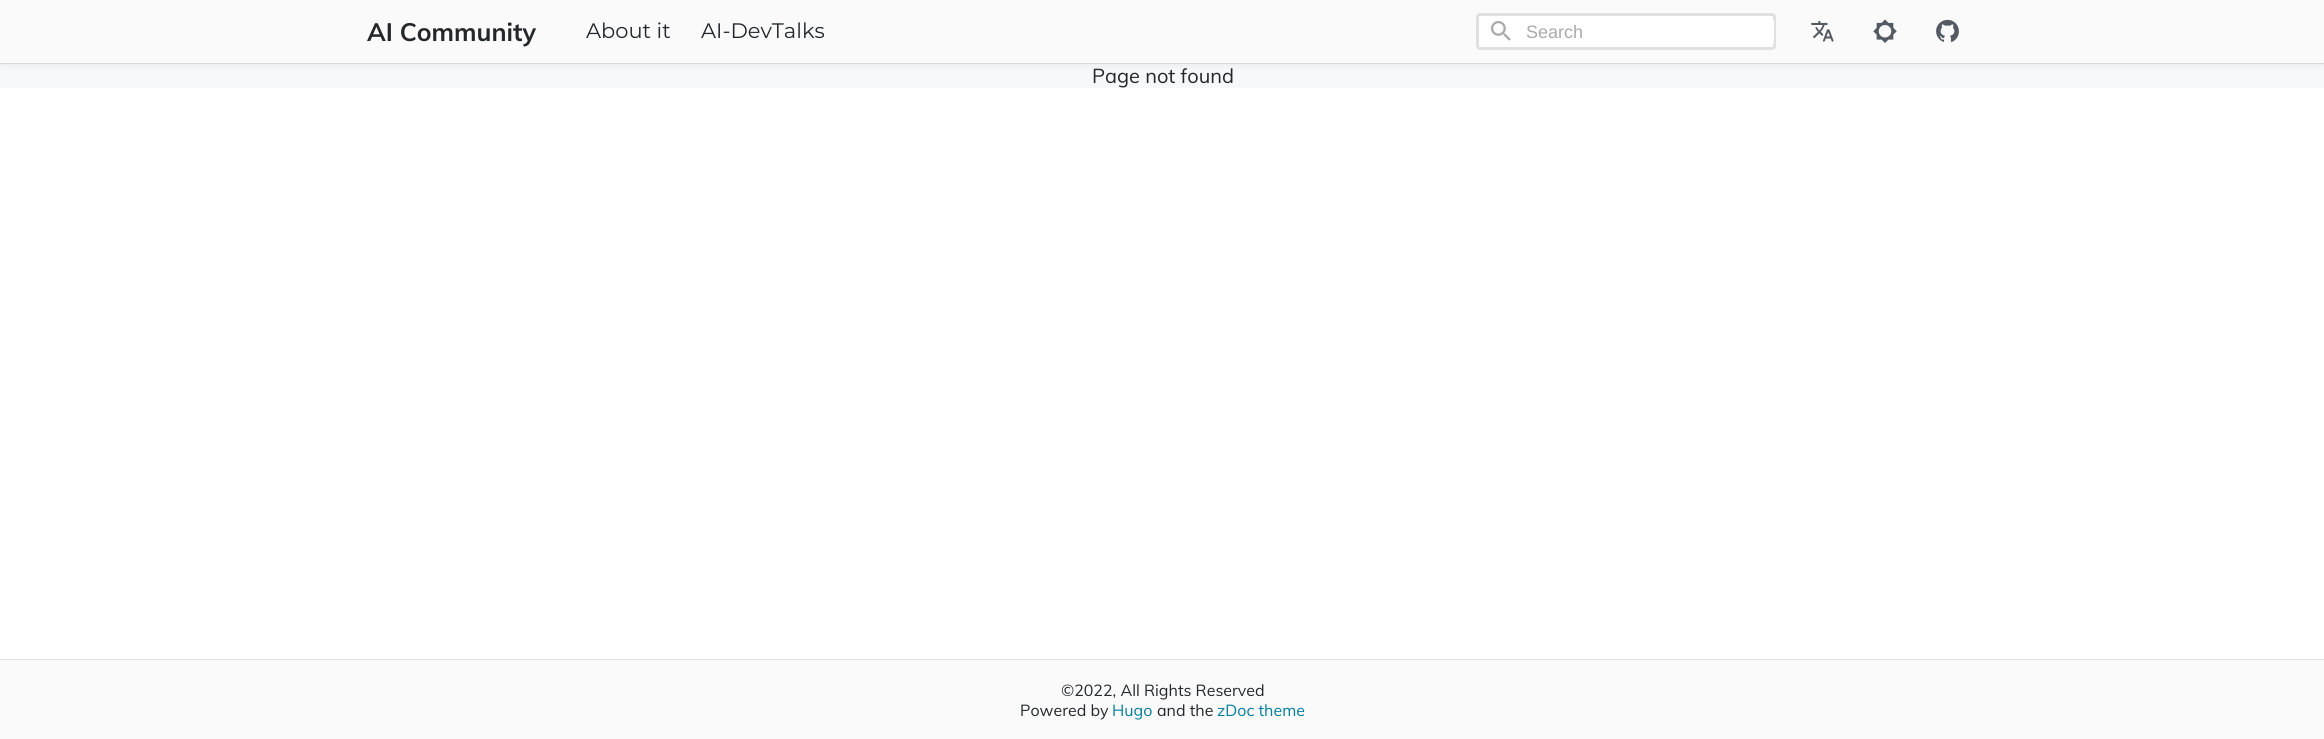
import math
import cairo


def use_color(cr, r, g, b):
  cr.set_source_rgb(r / 255, g / 255, b / 255)

def text(cr, x, y, s, family, size, color, bold=False, italic=False):
  cr.select_font_face(family, cairo.FONT_SLANT_ITALIC if italic else cairo.FONT_SLANT_NORMAL, cairo.FONT_WEIGHT_BOLD if bold else cairo.FONT_WEIGHT_NORMAL)
  cr.set_font_size(size)
  use_color(cr, *color)
  cr.move_to(x, y)
  cr.show_text(s)

def box(cr, x, y, w, h, *color):
  use_color(cr, *color)
  cr.rectangle(x, y, w, h)
  cr.fill()

def round_rect(cr, x, y, w, h, r):
  cr.new_sub_path()
  for i, (u, v) in enumerate([(x + w - r, y + h - r), (x + r, y + h - r), (x + r, y + r), (x + w - r, y + r)]):
    cr.arc(u, v, r, i * math.pi / 2, (i + 1) * math.pi / 2)
  cr.close_path()

def shadow(cr, x, y, w, h, r, blur, alpha):
  cr.push_group_with_content(cairo.CONTENT_ALPHA)
  cr.set_operator(cairo.OPERATOR_SOURCE)
  for i in range(15, -16, -2):
    e = blur * i / 6
    if min(w, h) + 2 * e > 0:
      cr.set_source_rgba(0, 0, 0, alpha * math.erfc((i - 1) / 8.5) / 2)
      round_rect(cr, x - e, y - e, w + 2 * e, h + 2 * e, max(0, min(r + e + blur * .6, min(w, h) / 2 + e)))
      cr.fill()
  cr.mask(cr.pop_group())

def picture(cr, path, x, y, w, h):
  cr.save()
  cr.set_source_surface(cairo.ImageSurface.create_from_png(path), x, y)
  cr.rectangle(x, y, w, h)
  cr.fill()
  cr.restore()

def draw(cr):
  use_color(cr, 255, 255, 255)
  cr.paint()
  box(cr, 0, 63, 2324, 25, 247, 248, 249)
  use_color(cr, 60, 65, 70)
  shadow(cr, 0, 1, 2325, 63, 0, 4, 0.1)
  cr.set_source_rgba(0.047, 0.051, 0.055, 0.1)
  cr.rectangle(0, 63, 2324, 1)
  cr.fill()
  box(cr, 0, 0, 2324, 63, 250, 250, 250)
  use_color(cr, 255, 255, 255)
  round_rect(cr, 1477.5, 14.5, 297, 34, 2.5)
  cr.fill_preserve()
  use_color(cr, 224, 224, 224)
  cr.set_line_width(3)
  cr.stroke()
  picture(cr, "img_01.png", 1491, 21, 20, 20)
  box(cr, 1773, 20, 1, 23, 255, 255, 255)
  picture(cr, "img_02.png", 1811, 20, 23, 22)
  picture(cr, "img_03.png", 1873, 19, 24, 24)
  picture(cr, "img_04.png", 1936, 19, 23, 23)
  box(cr, 0, 660, 2324, 79, 250, 250, 250)
  box(cr, 0, 659, 2324, 1, 226, 226, 226)
  text(cr, 367, 41, "AI Community", "Muli", 25, (36, 39, 41), bold=True)
  text(cr, 586, 38, "About it", "Montserrat", 21, (36, 39, 41))
  text(cr, 701, 38, "AI-DevTalks", "Montserrat", 21, (36, 39, 41))
  text(cr, 1526, 38, "Search", "Liberation Sans", 18, (170, 170, 170))
  text(cr, 1092, 83, "Page not found", "Muli", 20, (36, 39, 41))
  text(cr, 1061, 696, "©2022, All Rights Reserved", "Muli", 16, (36, 39, 41))
  text(cr, 1020, 716, "Powered by", "Muli", 16, (36, 39, 41))
  text(cr, 1112, 716, "Hugo", "Muli", 16, (0, 125, 156))
  text(cr, 1157, 716, "and the", "Muli", 16, (36, 39, 41))
  text(cr, 1217, 716, "zDoc theme", "Muli", 16, (0, 125, 156))


surface = cairo.ImageSurface(cairo.FORMAT_RGB24, 2324, 739)
cr = cairo.Context(surface)
options = cairo.FontOptions()
options.set_hint_metrics(cairo.HINT_METRICS_OFF)
options.set_hint_style(cairo.HINT_STYLE_NONE)
cr.set_font_options(options)
cr.set_miter_limit(4)
draw(cr)
surface.write_to_png("out.png")
